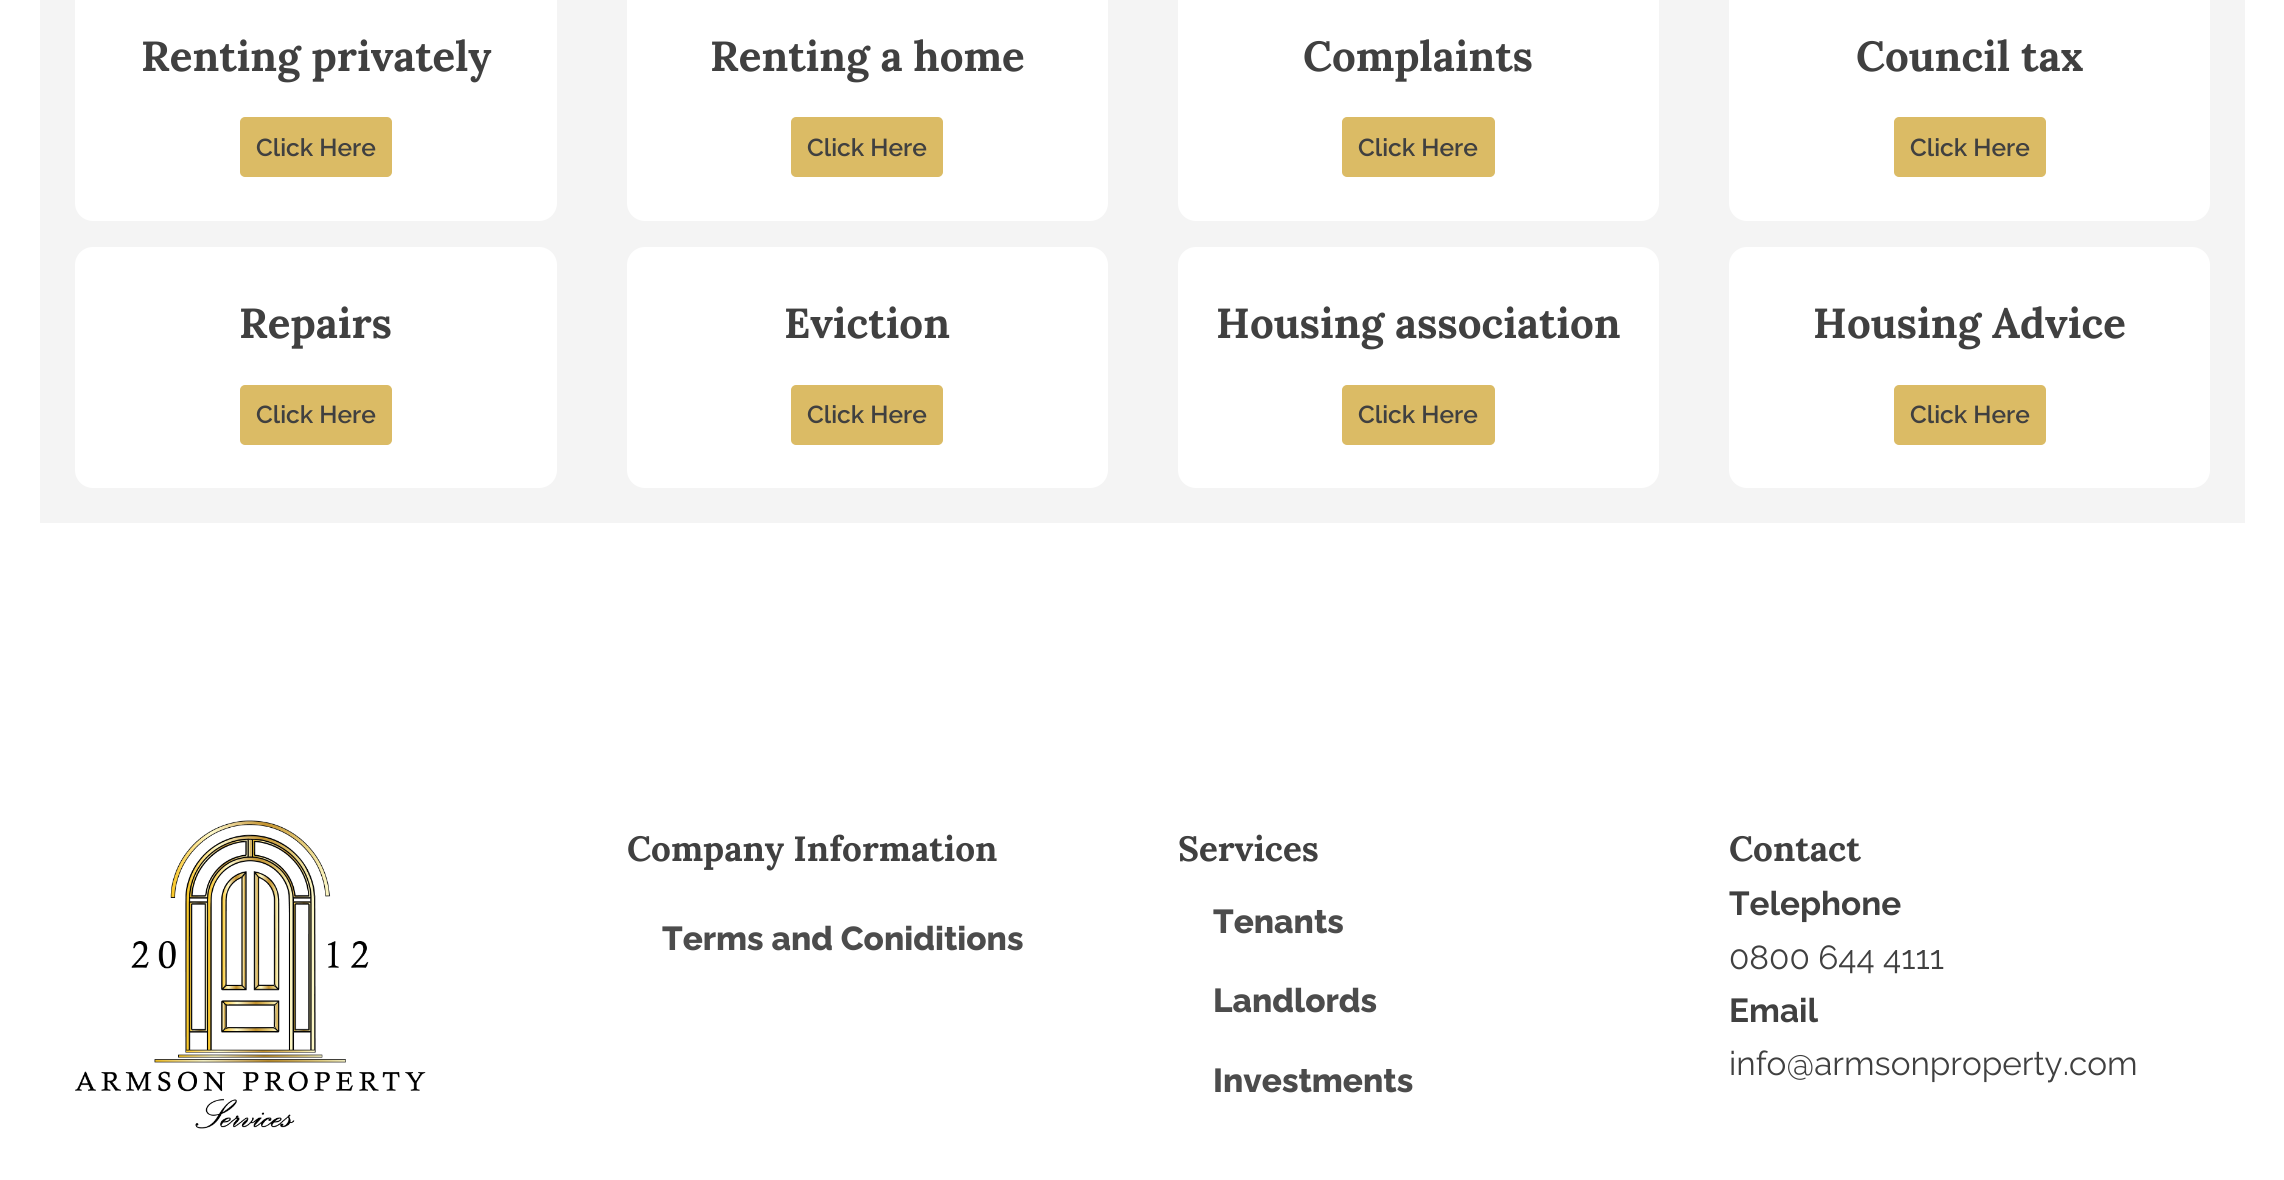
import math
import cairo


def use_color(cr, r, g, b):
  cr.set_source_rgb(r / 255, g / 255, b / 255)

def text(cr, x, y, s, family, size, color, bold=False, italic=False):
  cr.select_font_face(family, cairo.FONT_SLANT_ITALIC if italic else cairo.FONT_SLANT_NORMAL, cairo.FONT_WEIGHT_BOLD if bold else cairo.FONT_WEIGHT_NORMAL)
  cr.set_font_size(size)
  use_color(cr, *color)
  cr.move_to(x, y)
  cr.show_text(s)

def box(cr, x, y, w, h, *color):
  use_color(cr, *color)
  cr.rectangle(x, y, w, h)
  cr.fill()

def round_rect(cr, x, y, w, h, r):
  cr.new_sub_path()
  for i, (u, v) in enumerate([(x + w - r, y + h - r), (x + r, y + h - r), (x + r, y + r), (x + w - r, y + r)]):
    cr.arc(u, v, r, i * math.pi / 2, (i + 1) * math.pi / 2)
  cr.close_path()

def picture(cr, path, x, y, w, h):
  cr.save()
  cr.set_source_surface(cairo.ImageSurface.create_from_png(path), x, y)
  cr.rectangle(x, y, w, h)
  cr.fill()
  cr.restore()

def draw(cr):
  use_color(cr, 255, 255, 255)
  cr.paint()
  box(cr, 40, 0, 2205, 523, 244, 244, 244)
  use_color(cr, 255, 255, 255)
  round_rect(cr, 75, -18, 482, 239, 18)
  cr.fill()
  use_color(cr, 219, 187, 101)
  round_rect(cr, 241, 118, 150, 58, 4)
  cr.fill_preserve()
  cr.stroke()
  use_color(cr, 255, 255, 255)
  round_rect(cr, 75, 247, 482, 241, 18)
  cr.fill()
  use_color(cr, 219, 187, 101)
  round_rect(cr, 241, 386, 150, 58, 4)
  cr.fill_preserve()
  cr.stroke()
  use_color(cr, 255, 255, 255)
  round_rect(cr, 627, -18, 481, 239, 18)
  cr.fill()
  use_color(cr, 219, 187, 101)
  round_rect(cr, 792, 118, 150, 58, 4)
  cr.fill_preserve()
  cr.stroke()
  use_color(cr, 255, 255, 255)
  round_rect(cr, 627, 247, 481, 241, 18)
  cr.fill()
  use_color(cr, 219, 187, 101)
  round_rect(cr, 792, 386, 150, 58, 4)
  cr.fill_preserve()
  cr.stroke()
  use_color(cr, 255, 255, 255)
  round_rect(cr, 1178, -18, 481, 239, 18)
  cr.fill()
  use_color(cr, 219, 187, 101)
  round_rect(cr, 1343, 118, 151, 58, 4)
  cr.fill_preserve()
  cr.stroke()
  use_color(cr, 255, 255, 255)
  round_rect(cr, 1178, 247, 481, 241, 18)
  cr.fill()
  use_color(cr, 219, 187, 101)
  round_rect(cr, 1343, 386, 151, 58, 4)
  cr.fill_preserve()
  cr.stroke()
  use_color(cr, 255, 255, 255)
  round_rect(cr, 1729, -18, 481, 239, 18)
  cr.fill()
  use_color(cr, 219, 187, 101)
  round_rect(cr, 1895, 118, 150, 58, 4)
  cr.fill_preserve()
  cr.stroke()
  use_color(cr, 255, 255, 255)
  round_rect(cr, 1729, 247, 481, 241, 18)
  cr.fill()
  use_color(cr, 219, 187, 101)
  round_rect(cr, 1895, 386, 150, 58, 4)
  cr.fill_preserve()
  cr.stroke()
  picture(cr, "img_01.png", 75, 820, 351, 309)
  text(cr, 141, 71, "Renting privately", "Lora", 42, (64, 64, 64), bold=True)
  text(cr, 256, 156, "Click Here", "Raleway SemiBold", 24.5, (64, 64, 64))
  text(cr, 239, 338, "Repairs", "Lora", 42, (64, 64, 64), bold=True)
  text(cr, 256, 423, "Click Here", "Raleway SemiBold", 24.5, (64, 64, 64))
  text(cr, 710, 71, "Renting a home", "Lora", 42, (64, 64, 64), bold=True)
  text(cr, 807, 156, "Click Here", "Raleway SemiBold", 24.5, (64, 64, 64))
  text(cr, 784, 338, "Eviction", "Lora", 42, (64, 64, 64), bold=True)
  text(cr, 807, 423, "Click Here", "Raleway SemiBold", 24.5, (64, 64, 64))
  text(cr, 1303, 71, "Complaints", "Lora", 42, (64, 64, 64), bold=True)
  text(cr, 1358, 156, "Click Here", "Raleway SemiBold", 24.5, (64, 64, 64))
  text(cr, 1216, 338, "Housing association", "Lora", 42, (64, 64, 64), bold=True)
  text(cr, 1358, 423, "Click Here", "Raleway SemiBold", 24.5, (64, 64, 64))
  text(cr, 1856, 71, "Council tax", "Lora", 42, (64, 64, 64), bold=True)
  text(cr, 1910, 156, "Click Here", "Raleway SemiBold", 24.5, (64, 64, 64))
  text(cr, 1813, 338, "Housing Advice", "Lora", 42, (64, 64, 64), bold=True)
  text(cr, 1910, 423, "Click Here", "Raleway SemiBold", 24.5, (64, 64, 64))
  text(cr, 627, 861, "Company Information", "Lora", 35, (64, 64, 64), bold=True)
  text(cr, 662, 950, "Terms and Coniditions", "Raleway ExtraBold", 33.25, (76, 76, 76))
  text(cr, 1178, 861, "Services", "Lora", 35, (64, 64, 64), bold=True)
  text(cr, 1213, 933, "Tenants", "Raleway ExtraBold", 33.25, (76, 76, 76))
  text(cr, 1213, 1012, "Landlords", "Raleway ExtraBold", 33.25, (76, 76, 76))
  text(cr, 1213, 1092, "Investments", "Raleway ExtraBold", 33.25, (76, 76, 76))
  text(cr, 1729, 861, "Contact", "Lora", 35, (64, 64, 64), bold=True)
  text(cr, 1729, 915, "Telephone", "Raleway", 33.25, (64, 64, 64), bold=True)
  text(cr, 1729, 969, "0800 644 4111", "Raleway", 33.25, (64, 64, 64))
  text(cr, 1729, 1022, "Email", "Raleway", 33.25, (64, 64, 64), bold=True)
  text(cr, 1729, 1075, "info@armsonproperty.com", "Raleway", 33.25, (64, 64, 64))


surface = cairo.ImageSurface(cairo.FORMAT_RGB24, 2284, 1180)
cr = cairo.Context(surface)
options = cairo.FontOptions()
options.set_hint_metrics(cairo.HINT_METRICS_OFF)
options.set_hint_style(cairo.HINT_STYLE_NONE)
cr.set_font_options(options)
cr.set_miter_limit(4)
draw(cr)
surface.write_to_png("out.png")
